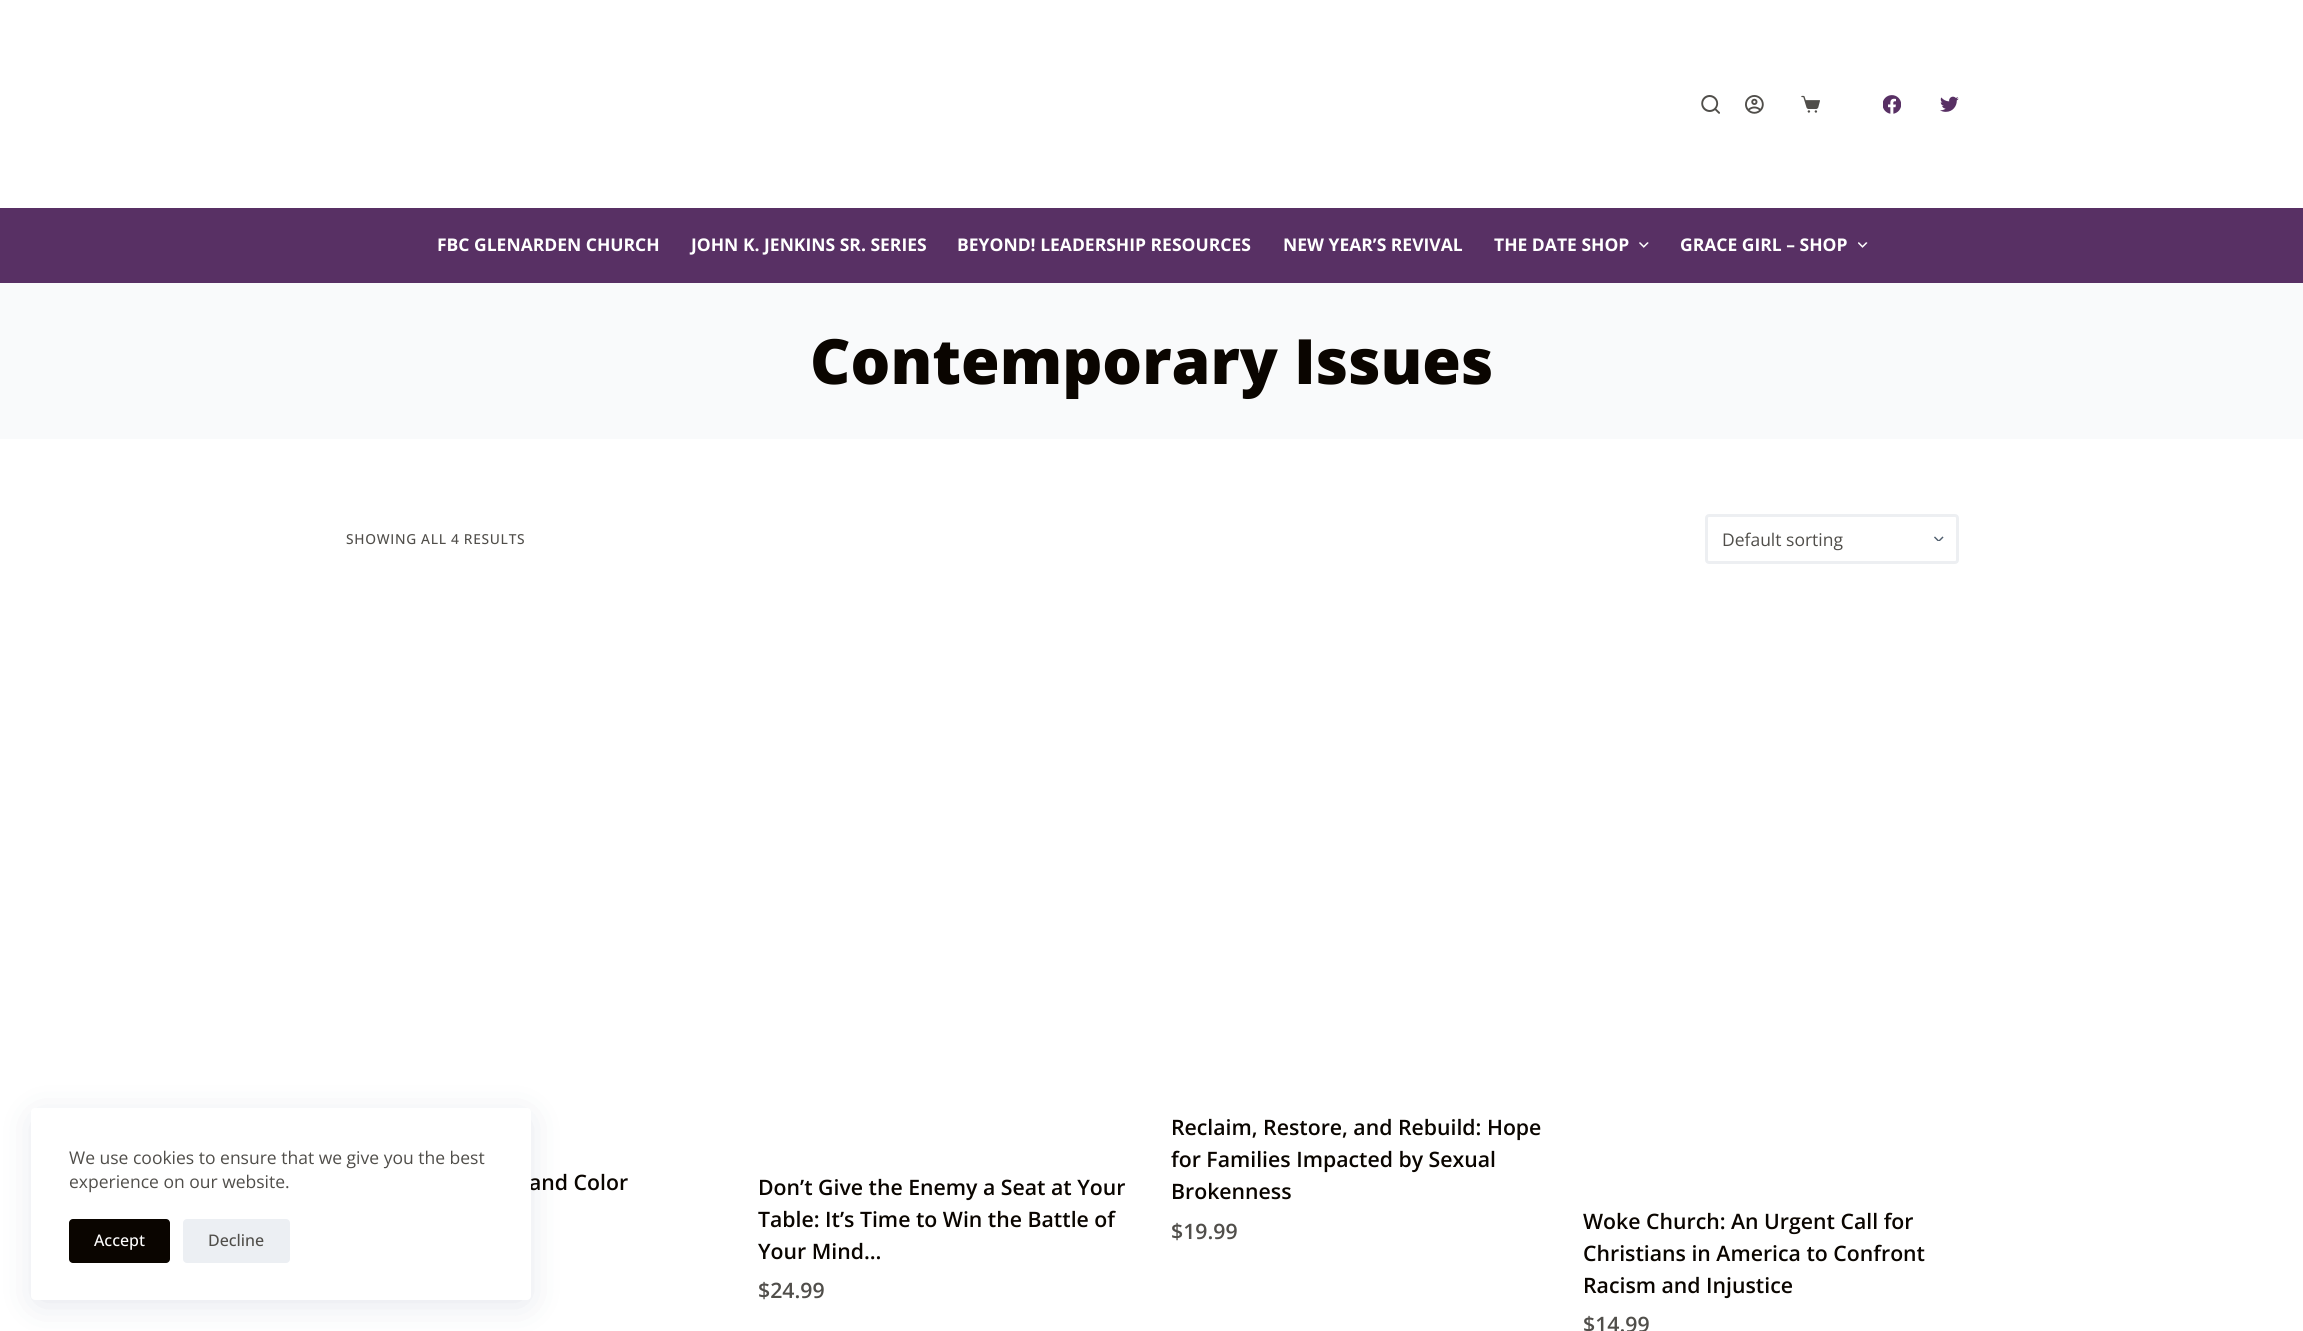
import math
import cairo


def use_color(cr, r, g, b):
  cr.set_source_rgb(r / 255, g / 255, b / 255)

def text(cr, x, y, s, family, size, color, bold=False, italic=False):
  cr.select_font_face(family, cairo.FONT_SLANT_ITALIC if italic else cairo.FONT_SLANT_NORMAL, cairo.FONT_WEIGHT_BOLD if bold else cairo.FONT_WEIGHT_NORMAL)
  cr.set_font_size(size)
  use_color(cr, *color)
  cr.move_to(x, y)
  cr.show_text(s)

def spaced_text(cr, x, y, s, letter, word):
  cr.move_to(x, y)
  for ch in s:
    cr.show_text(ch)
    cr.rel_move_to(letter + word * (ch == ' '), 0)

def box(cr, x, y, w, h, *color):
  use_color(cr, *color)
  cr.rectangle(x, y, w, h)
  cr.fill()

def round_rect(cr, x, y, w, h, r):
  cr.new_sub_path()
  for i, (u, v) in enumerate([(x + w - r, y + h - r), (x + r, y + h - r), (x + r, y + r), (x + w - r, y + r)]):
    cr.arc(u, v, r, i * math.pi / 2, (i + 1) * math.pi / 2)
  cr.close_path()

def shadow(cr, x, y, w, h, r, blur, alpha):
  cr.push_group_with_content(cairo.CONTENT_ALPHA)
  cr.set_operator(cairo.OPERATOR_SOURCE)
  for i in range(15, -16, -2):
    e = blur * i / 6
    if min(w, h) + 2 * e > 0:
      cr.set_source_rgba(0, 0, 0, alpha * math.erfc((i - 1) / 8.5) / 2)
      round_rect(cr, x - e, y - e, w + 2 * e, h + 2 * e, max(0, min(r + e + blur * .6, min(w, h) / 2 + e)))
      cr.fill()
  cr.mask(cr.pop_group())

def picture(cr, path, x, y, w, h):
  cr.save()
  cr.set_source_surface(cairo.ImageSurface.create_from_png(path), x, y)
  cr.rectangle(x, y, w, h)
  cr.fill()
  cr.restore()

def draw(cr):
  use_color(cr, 255, 255, 255)
  cr.paint()
  use_color(cr, 34, 56, 101)
  shadow(cr, 38, 1120, 487, 180, 0, 19, 0.15)
  picture(cr, "img_01.png", 1701, 95, 19, 19)
  picture(cr, "img_02.png", 1745, 95, 19, 19)
  picture(cr, "img_03.png", 1801, 95, 19, 18)
  picture(cr, "img_04.png", 1883, 95, 18, 19)
  picture(cr, "img_05.png", 1940, 96, 19, 16)
  box(cr, 0, 208, 2303, 75, 88, 48, 100)
  picture(cr, "img_06.png", 1639, 242, 10, 6)
  picture(cr, "img_07.png", 1858, 242, 10, 6)
  box(cr, 0, 283, 2303, 156, 249, 250, 251)
  picture(cr, "img_08.png", 1934, 536, 10, 5)
  round_rect(cr, 1706.5, 515.5, 251, 47, 2.5)
  use_color(cr, 237, 239, 242)
  cr.set_line_width(3)
  cr.stroke()
  text(cr, 437, 251, "FBC GLENARDEN CHURCH", "Open Sans", 17.5, (255, 255, 255), bold=True)
  text(cr, 691, 251, "JOHN K. JENKINS SR. SERIES", "Open Sans", 17.5, (255, 255, 255), bold=True)
  text(cr, 957, 251, "BEYOND! LEADERSHIP RESOURCES", "Open Sans", 17.5, (255, 255, 255), bold=True)
  text(cr, 1283, 251, "NEW YEAR’S REVIVAL", "Open Sans", 17.5, (255, 255, 255), bold=True)
  text(cr, 1494, 251, "THE DATE SHOP", "Open Sans", 17.5, (255, 255, 255), bold=True)
  text(cr, 1680, 251, "GRACE GIRL – SHOP", "Open Sans", 17.5, (255, 255, 255), bold=True)
  text(cr, 810, 384, "Contemporary Issues", "Open Sans ExtraBold", 62.5, (10, 5, 0))
  cr.select_font_face("Open Sans Medium")
  cr.set_font_size(13.75)
  use_color(cr, 80, 78, 74)
  spaced_text(cr, 346, 544, "SHOWING ALL 4 RESULTS", 0.7, 0)
  text(cr, 1722, 546, "Default sorting", "Open Sans", 17.5, (80, 78, 74))
  text(cr, 529, 1190, "and Color", "Open Sans SemiBold", 21.25, (10, 5, 0))
  use_color(cr, 255, 255, 255)
  round_rect(cr, 31, 1108, 500, 192, 4)
  cr.fill()
  use_color(cr, 236, 239, 243)
  round_rect(cr, 183, 1219, 107, 44, 4)
  cr.fill()
  text(cr, 208, 1246, "Decline", "Open Sans Medium", 16, (80, 78, 74))
  use_color(cr, 10, 5, 0)
  round_rect(cr, 69, 1219, 101, 44, 4)
  cr.fill()
  text(cr, 94, 1246, "Accept", "Open Sans Medium", 16, (255, 255, 255))
  text(cr, 69, 1188, "experience on our website.", "Open Sans", 17.5, (80, 78, 74))
  text(cr, 69, 1164, "We use cookies to ensure that we give you the best", "Open Sans", 17.5, (80, 78, 74))
  text(cr, 758, 1195, "Don’t Give the Enemy a Seat at Your", "Open Sans SemiBold", 21.25, (10, 5, 0))
  text(cr, 758, 1227, "Table: It’s Time to Win the Battle of", "Open Sans SemiBold", 21.25, (10, 5, 0))
  text(cr, 758, 1259, "Your Mind…", "Open Sans SemiBold", 21.25, (10, 5, 0))
  text(cr, 758, 1298, "$24.99", "Open Sans SemiBold", 21.25, (80, 78, 74))
  text(cr, 1171, 1135, "Reclaim, Restore, and Rebuild: Hope", "Open Sans SemiBold", 21.25, (10, 5, 0))
  text(cr, 1171, 1167, "for Families Impacted by Sexual", "Open Sans SemiBold", 21.25, (10, 5, 0))
  text(cr, 1171, 1199, "Brokenness", "Open Sans SemiBold", 21.25, (10, 5, 0))
  text(cr, 1171, 1239, "$19.99", "Open Sans SemiBold", 21.25, (80, 78, 74))
  text(cr, 1583, 1229, "Woke Church: An Urgent Call for", "Open Sans SemiBold", 21.25, (10, 5, 0))
  text(cr, 1583, 1261, "Christians in America to Confront", "Open Sans SemiBold", 21.25, (10, 5, 0))
  text(cr, 1583, 1293, "Racism and Injustice", "Open Sans SemiBold", 21.25, (10, 5, 0))
  text(cr, 1583, 1332, "$14.99", "Open Sans SemiBold", 21.25, (80, 78, 74))


surface = cairo.ImageSurface(cairo.FORMAT_RGB24, 2303, 1331)
cr = cairo.Context(surface)
options = cairo.FontOptions()
options.set_hint_metrics(cairo.HINT_METRICS_OFF)
options.set_hint_style(cairo.HINT_STYLE_NONE)
cr.set_font_options(options)
cr.set_miter_limit(4)
draw(cr)
surface.write_to_png("out.png")
